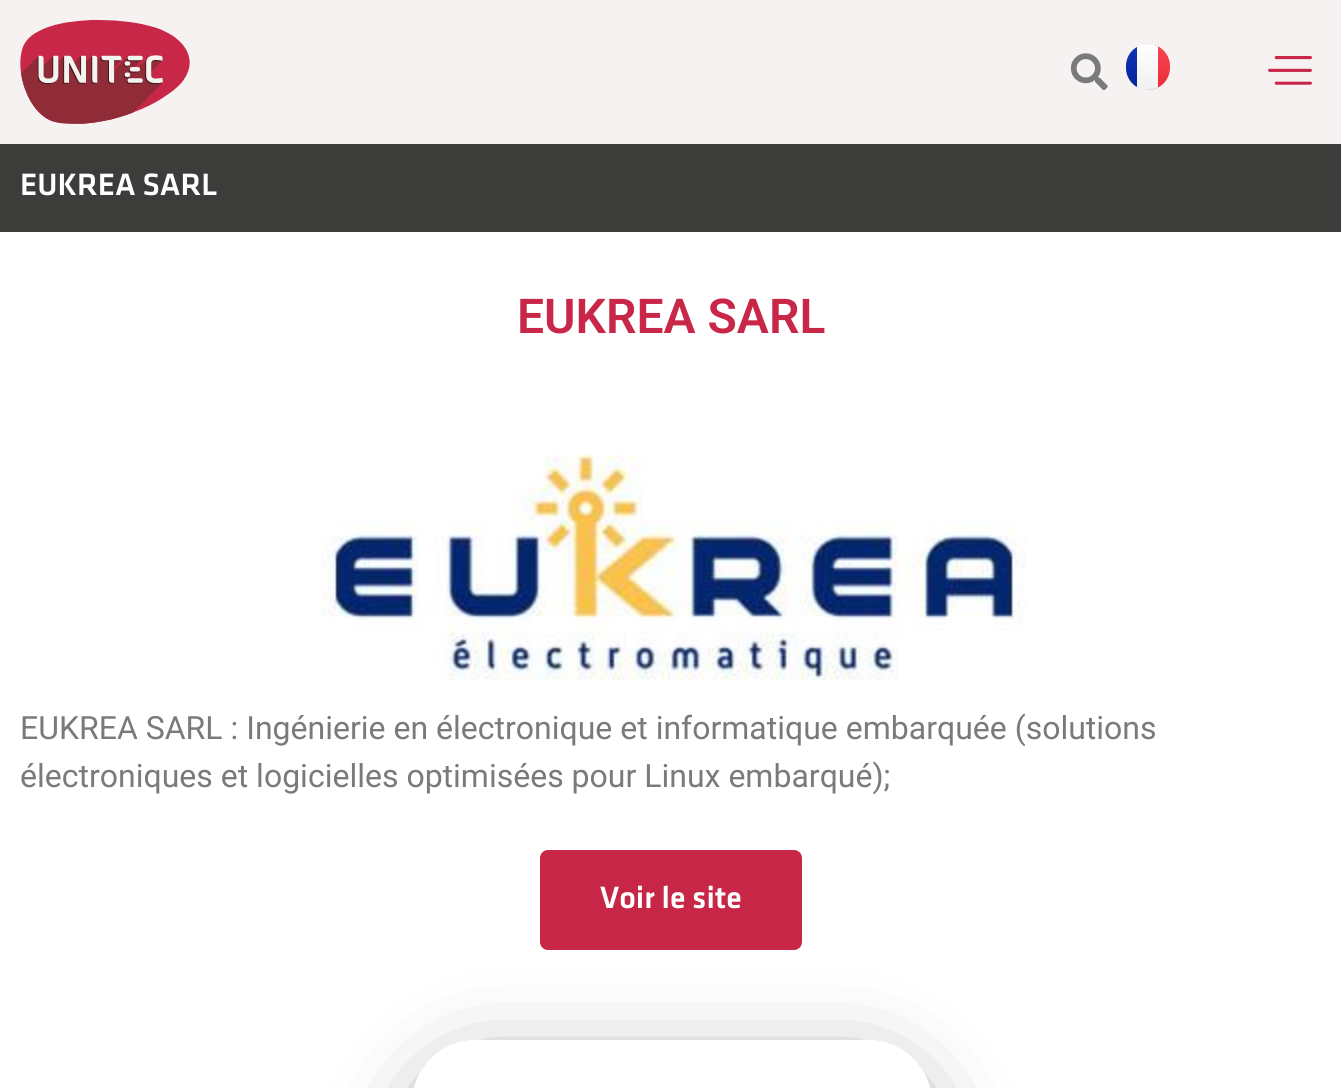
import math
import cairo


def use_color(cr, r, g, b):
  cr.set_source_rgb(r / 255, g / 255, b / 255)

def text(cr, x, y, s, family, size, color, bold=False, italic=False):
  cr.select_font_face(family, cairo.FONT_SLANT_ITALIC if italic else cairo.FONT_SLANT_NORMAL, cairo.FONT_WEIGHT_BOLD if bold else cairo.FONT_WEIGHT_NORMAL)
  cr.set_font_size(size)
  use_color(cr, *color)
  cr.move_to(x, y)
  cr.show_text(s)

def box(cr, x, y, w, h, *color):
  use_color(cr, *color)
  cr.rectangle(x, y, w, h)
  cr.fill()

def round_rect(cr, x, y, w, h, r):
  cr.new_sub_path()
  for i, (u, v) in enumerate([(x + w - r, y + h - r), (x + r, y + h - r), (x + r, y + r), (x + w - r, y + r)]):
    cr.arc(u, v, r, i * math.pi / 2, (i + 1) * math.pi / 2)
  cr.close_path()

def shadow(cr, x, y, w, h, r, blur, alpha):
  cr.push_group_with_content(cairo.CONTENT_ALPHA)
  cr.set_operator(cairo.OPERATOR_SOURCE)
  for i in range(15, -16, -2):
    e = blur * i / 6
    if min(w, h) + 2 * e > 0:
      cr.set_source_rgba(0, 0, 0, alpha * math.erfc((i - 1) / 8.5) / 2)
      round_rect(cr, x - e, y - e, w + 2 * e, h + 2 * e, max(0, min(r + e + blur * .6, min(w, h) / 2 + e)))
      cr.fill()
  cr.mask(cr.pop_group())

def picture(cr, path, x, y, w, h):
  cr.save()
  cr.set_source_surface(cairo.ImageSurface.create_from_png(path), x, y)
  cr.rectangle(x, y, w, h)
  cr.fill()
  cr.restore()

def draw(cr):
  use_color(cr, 255, 255, 255)
  cr.paint()
  box(cr, 0, 0, 1341, 144, 245, 242, 241)
  picture(cr, "img_01.png", 20, 20, 170, 104)
  picture(cr, "img_02.png", 1070, 53, 38, 38)
  cr.save()
  round_rect(cr, 1126, 44, 44, 46, 22)
  cr.clip()
  gradient = cairo.LinearGradient(1163, 45, 1163, 90)
  gradient.add_color_stop_rgba(0, 0.957, 0.275, 0.325, 1)
  gradient.add_color_stop_rgba(1, 0.933, 0.165, 0.224, 1)
  cr.set_source(gradient)
  cr.new_path()
  cr.move_to(1146, 45)
  cr.line_to(1170, 45)
  cr.line_to(1170, 68)
  cr.curve_to(1170, 80, 1160, 90, 1148, 90)
  cr.line_to(1146, 90)
  cr.close_path()
  cr.fill()
  gradient = cairo.LinearGradient(1148, 45, 1148, 90)
  gradient.add_color_stop_rgba(0, 1, 1, 1, 1)
  gradient.add_color_stop_rgba(1, 0.941, 0.941, 0.941, 1)
  cr.set_source(gradient)
  cr.rectangle(1137, 45, 21, 45)
  cr.fill()
  gradient = cairo.LinearGradient(1127, 45, 1127, 90)
  gradient.add_color_stop_rgba(0, 0.063, 0.208, 0.733, 1)
  gradient.add_color_stop_rgba(1, 0.016, 0.137, 0.588, 1)
  cr.set_source(gradient)
  cr.rectangle(1126, 47, 11, 40)
  cr.fill()
  cr.restore()
  picture(cr, "img_03.png", 1268, 56, 44, 29)
  box(cr, 0, 144, 1341, 88, 60, 60, 59)
  picture(cr, "img_04.png", 321, 453, 705, 229)
  use_color(cr, 199, 38, 71)
  round_rect(cr, 540, 850, 262, 100, 8)
  cr.fill()
  cr.save()
  cr.set_fill_rule(cairo.FILL_RULE_EVEN_ODD)
  cr.new_path()
  cr.move_to(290, 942)
  cr.line_to(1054, 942)
  cr.line_to(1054, 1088)
  cr.line_to(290, 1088)
  cr.close_path()
  cr.move_to(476, 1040)
  cr.line_to(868, 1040)
  cr.curve_to(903.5, 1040, 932, 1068.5, 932, 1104)
  cr.line_to(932, 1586)
  cr.curve_to(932, 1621.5, 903.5, 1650, 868, 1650)
  cr.line_to(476, 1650)
  cr.curve_to(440.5, 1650, 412, 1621.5, 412, 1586)
  cr.line_to(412, 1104)
  cr.curve_to(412, 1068.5, 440.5, 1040, 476, 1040)
  cr.close_path()
  cr.clip()
  use_color(cr, 0, 0, 0)
  shadow(cr, 444, 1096, 456, 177, 32, 51, 0.75)
  cr.restore()
  text(cr, 20, 195, "EUKREA SARL", "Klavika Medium", 32, (255, 255, 255))
  text(cr, 517, 333, "EUKREA SARL", "Roboto SemiBold", 48, (200, 39, 72))
  text(cr, 20, 739, "EUKREA SARL : Ingénierie en électronique et informatique embarquée (solutions", "Roboto", 32, (122, 122, 122))
  text(cr, 20, 787, "électroniques et logicielles optimisées pour Linux embarqué);", "Roboto", 32, (122, 122, 122))
  text(cr, 600, 908, "Voir le site", "Klavika Medium", 32, (255, 255, 255))


surface = cairo.ImageSurface(cairo.FORMAT_RGB24, 1341, 1088)
cr = cairo.Context(surface)
options = cairo.FontOptions()
options.set_hint_metrics(cairo.HINT_METRICS_OFF)
options.set_hint_style(cairo.HINT_STYLE_NONE)
cr.set_font_options(options)
cr.set_miter_limit(4)
draw(cr)
surface.write_to_png("out.png")
